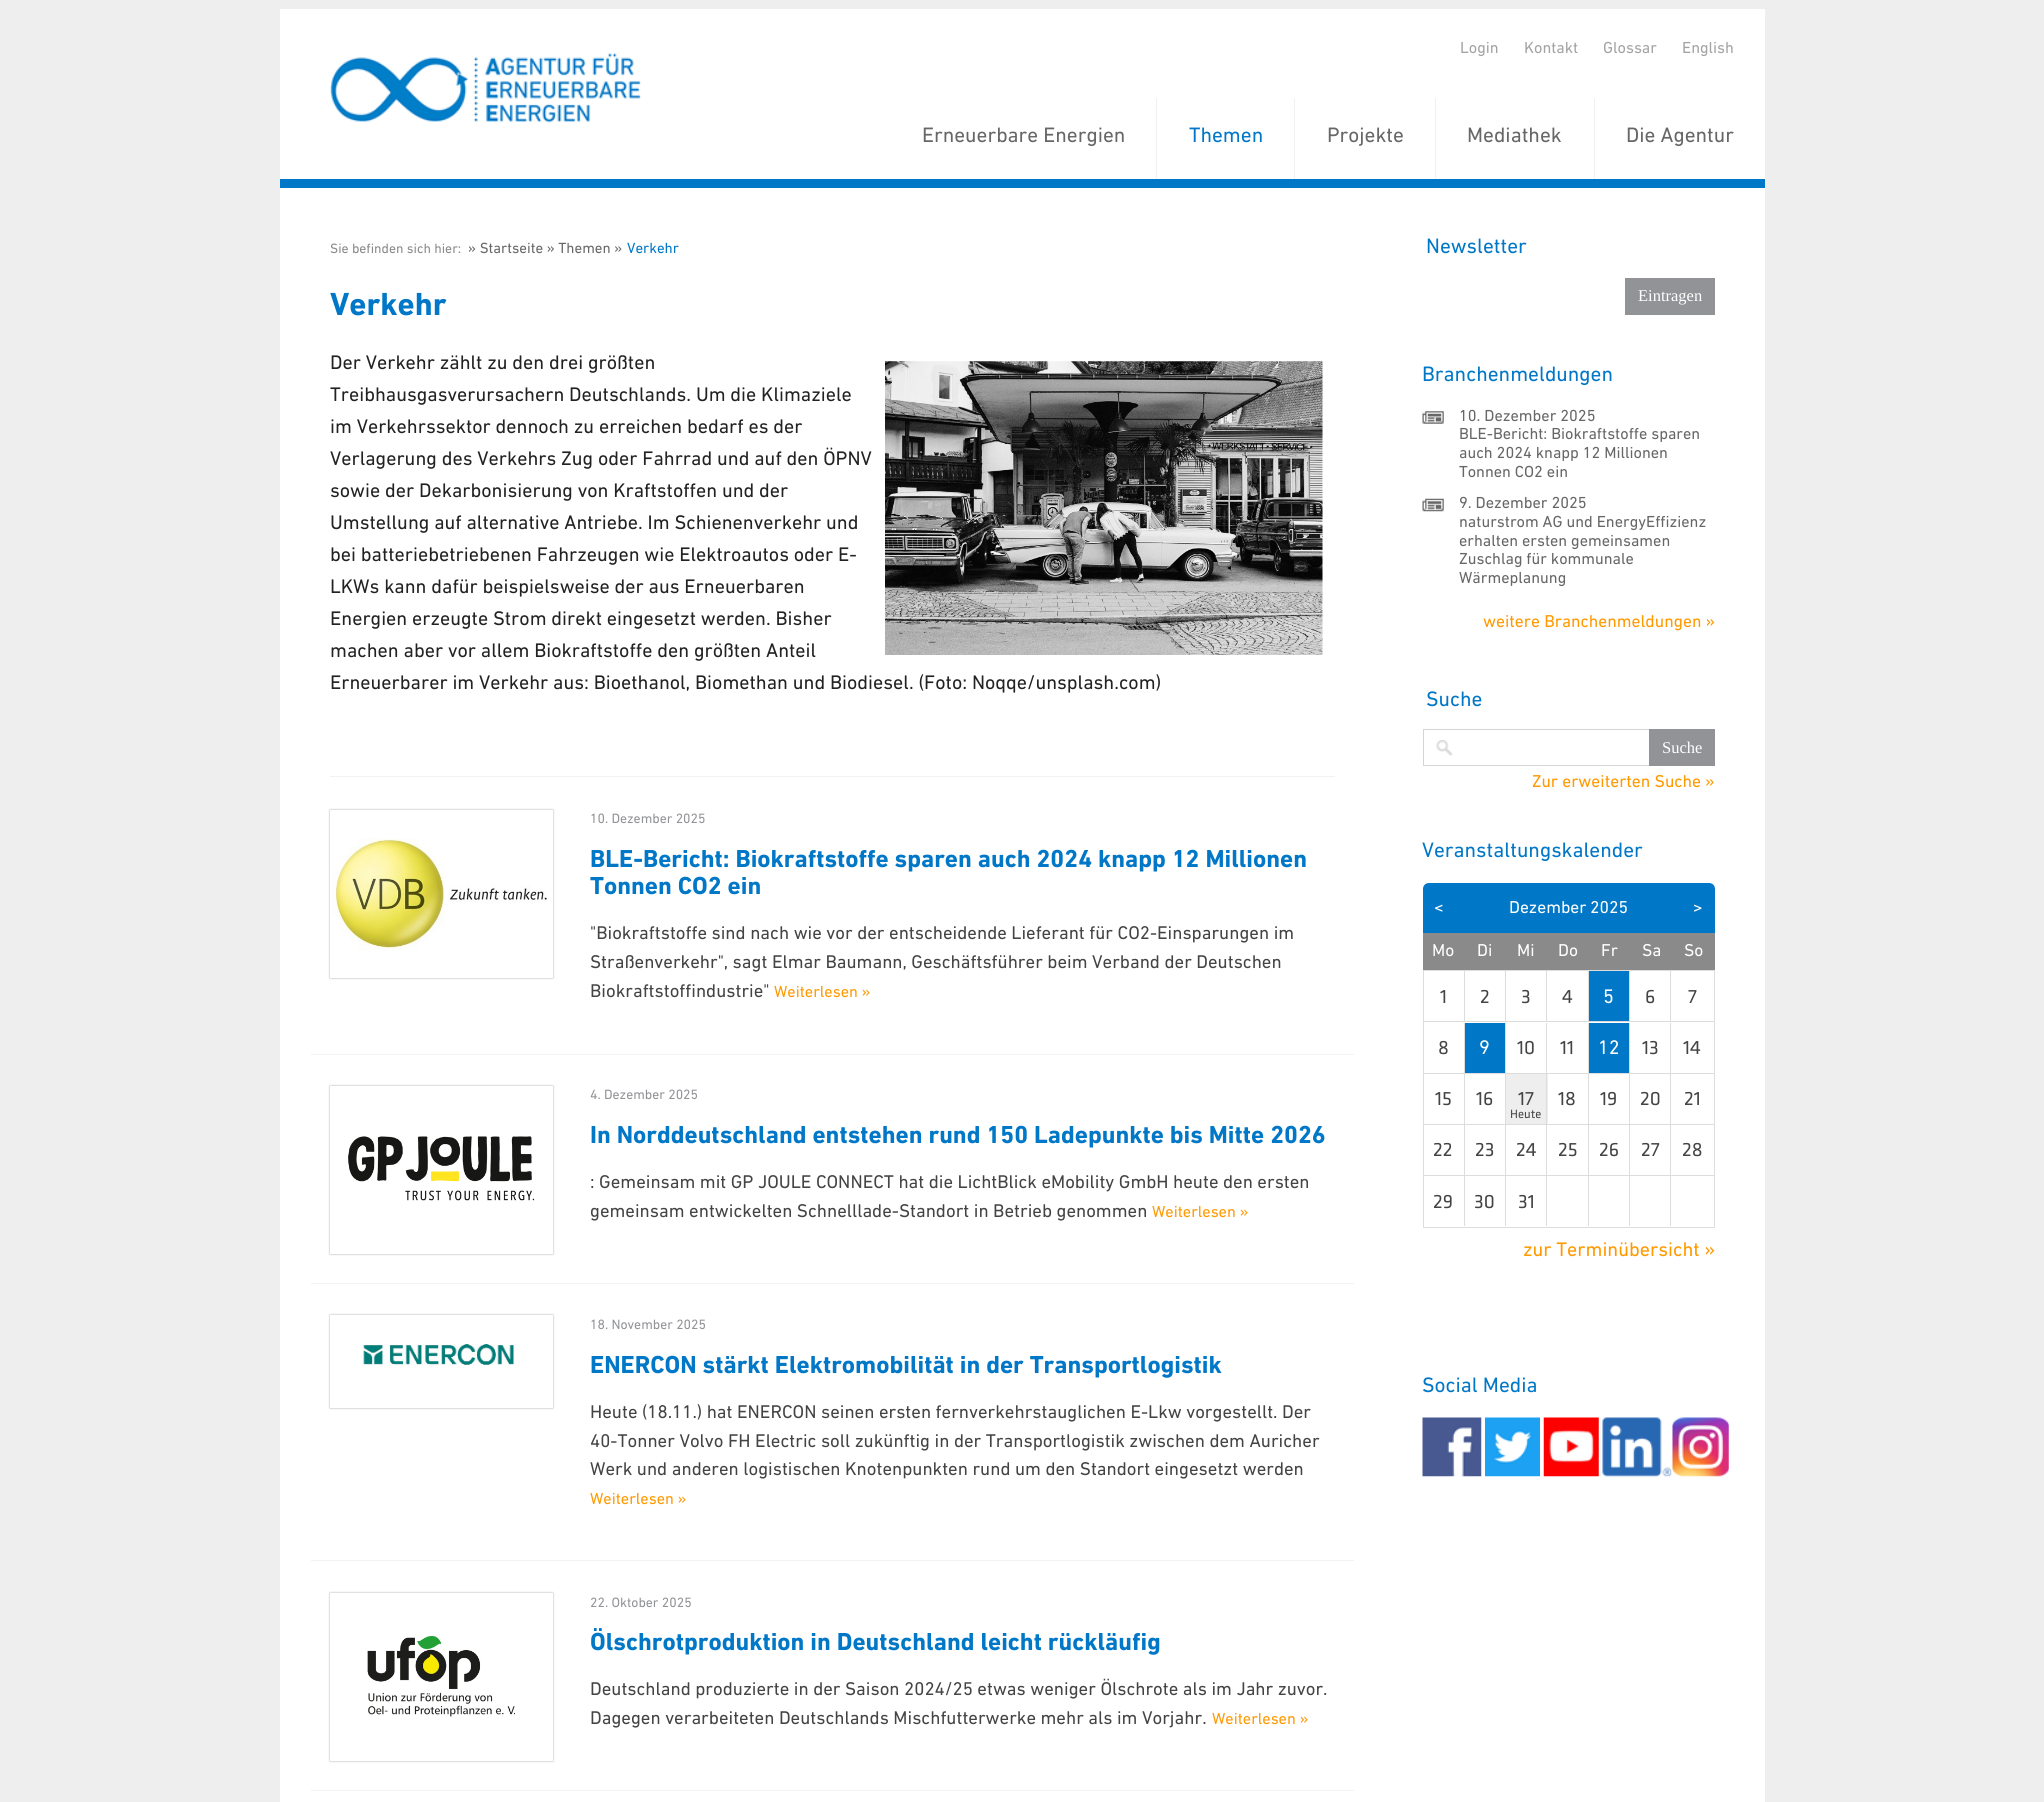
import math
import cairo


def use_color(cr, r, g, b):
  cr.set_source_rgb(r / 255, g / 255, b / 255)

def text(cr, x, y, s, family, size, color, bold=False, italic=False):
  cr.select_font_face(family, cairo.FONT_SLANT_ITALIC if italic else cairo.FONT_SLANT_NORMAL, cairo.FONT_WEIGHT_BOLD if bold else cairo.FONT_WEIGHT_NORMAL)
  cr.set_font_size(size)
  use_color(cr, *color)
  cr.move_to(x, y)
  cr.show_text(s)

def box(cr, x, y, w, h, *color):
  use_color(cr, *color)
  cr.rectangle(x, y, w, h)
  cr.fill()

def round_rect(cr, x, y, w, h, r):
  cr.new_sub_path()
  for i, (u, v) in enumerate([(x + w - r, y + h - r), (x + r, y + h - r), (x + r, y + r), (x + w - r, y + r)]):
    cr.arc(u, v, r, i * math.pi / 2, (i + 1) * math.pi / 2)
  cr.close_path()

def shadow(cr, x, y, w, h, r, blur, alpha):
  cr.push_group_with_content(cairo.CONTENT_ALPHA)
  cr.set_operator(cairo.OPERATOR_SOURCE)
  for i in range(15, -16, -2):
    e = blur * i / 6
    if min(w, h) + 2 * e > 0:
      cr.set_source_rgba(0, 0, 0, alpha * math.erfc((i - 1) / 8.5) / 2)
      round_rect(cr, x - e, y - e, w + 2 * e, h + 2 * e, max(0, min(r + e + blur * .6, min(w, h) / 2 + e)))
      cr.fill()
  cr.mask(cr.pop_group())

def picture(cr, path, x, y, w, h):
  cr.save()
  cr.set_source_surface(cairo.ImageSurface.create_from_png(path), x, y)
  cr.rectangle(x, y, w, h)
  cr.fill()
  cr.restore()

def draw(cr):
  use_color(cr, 238, 238, 238)
  cr.paint()
  box(cr, 280, 9, 1485, 170, 255, 255, 255)
  box(cr, 280, 179, 1485, 9, 0, 119, 199)
  picture(cr, "img_01.png", 330, 53, 311, 70)
  box(cr, 1156, 98, 1, 81, 240, 240, 240)
  box(cr, 1294, 98, 1, 81, 240, 240, 240)
  box(cr, 1435, 98, 1, 81, 240, 240, 240)
  box(cr, 1594, 98, 1, 81, 240, 240, 240)
  box(cr, 280, 188, 1485, 1614, 255, 255, 255)
  box(cr, 330, 776, 1005, 1, 242, 242, 242)
  picture(cr, "img_02.png", 885, 361, 438, 294)
  cr.save()
  cr.set_fill_rule(cairo.FILL_RULE_EVEN_ODD)
  cr.new_path()
  cr.move_to(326, 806)
  cr.line_to(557, 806)
  cr.line_to(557, 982)
  cr.line_to(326, 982)
  cr.close_path()
  cr.move_to(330, 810)
  cr.line_to(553, 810)
  cr.line_to(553, 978)
  cr.line_to(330, 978)
  cr.close_path()
  cr.clip()
  use_color(cr, 0, 0, 0)
  shadow(cr, 330, 810, 223, 168, 0, 1, 0.35)
  cr.restore()
  cr.rectangle(331.5, 811.5, 220, 165)
  use_color(cr, 255, 255, 255)
  cr.set_line_width(3)
  cr.stroke()
  picture(cr, "img_03.png", 332, 838, 215, 112)
  box(cr, 311, 1054, 1043, 1, 242, 242, 242)
  cr.save()
  cr.set_fill_rule(cairo.FILL_RULE_EVEN_ODD)
  cr.new_path()
  cr.move_to(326, 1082)
  cr.line_to(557, 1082)
  cr.line_to(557, 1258)
  cr.line_to(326, 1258)
  cr.close_path()
  cr.move_to(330, 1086)
  cr.line_to(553, 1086)
  cr.line_to(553, 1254)
  cr.line_to(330, 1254)
  cr.close_path()
  cr.clip()
  use_color(cr, 0, 0, 0)
  shadow(cr, 330, 1086, 223, 168, 0, 1, 0.35)
  cr.restore()
  cr.rectangle(331.5, 1087.5, 220, 165)
  use_color(cr, 255, 255, 255)
  cr.stroke()
  picture(cr, "img_04.png", 348, 1136, 187, 65)
  box(cr, 311, 1283, 1043, 1, 242, 242, 242)
  cr.save()
  cr.set_fill_rule(cairo.FILL_RULE_EVEN_ODD)
  cr.new_path()
  cr.move_to(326, 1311)
  cr.line_to(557, 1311)
  cr.line_to(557, 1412)
  cr.line_to(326, 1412)
  cr.close_path()
  cr.move_to(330, 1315)
  cr.line_to(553, 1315)
  cr.line_to(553, 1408)
  cr.line_to(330, 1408)
  cr.close_path()
  cr.clip()
  use_color(cr, 0, 0, 0)
  shadow(cr, 330, 1315, 223, 93, 0, 1, 0.35)
  cr.restore()
  cr.rectangle(331.5, 1316.5, 220, 90)
  use_color(cr, 255, 255, 255)
  cr.stroke()
  picture(cr, "img_05.png", 363, 1344, 151, 21)
  box(cr, 311, 1560, 1043, 1, 242, 242, 242)
  cr.save()
  cr.set_fill_rule(cairo.FILL_RULE_EVEN_ODD)
  cr.new_path()
  cr.move_to(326, 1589)
  cr.line_to(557, 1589)
  cr.line_to(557, 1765)
  cr.line_to(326, 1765)
  cr.close_path()
  cr.move_to(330, 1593)
  cr.line_to(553, 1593)
  cr.line_to(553, 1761)
  cr.line_to(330, 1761)
  cr.close_path()
  cr.clip()
  use_color(cr, 0, 0, 0)
  shadow(cr, 330, 1593, 223, 168, 0, 1, 0.35)
  cr.restore()
  cr.rectangle(331.5, 1594.5, 220, 165)
  use_color(cr, 255, 255, 255)
  cr.stroke()
  picture(cr, "img_06.png", 367, 1636, 148, 81)
  box(cr, 311, 1790, 1043, 1, 242, 242, 242)
  box(cr, 1625, 278, 90, 37, 146, 147, 151)
  picture(cr, "img_07.png", 1422, 411, 22, 13)
  picture(cr, "img_08.png", 1422, 498, 22, 14)
  picture(cr, "img_09.png", 1436, 740, 17, 16)
  cr.rectangle(1423.5, 729.5, 291, 36)
  use_color(cr, 213, 212, 212)
  cr.set_line_width(1)
  cr.stroke()
  box(cr, 1649, 729, 66, 37, 146, 147, 151)
  use_color(cr, 0, 119, 199)
  cr.new_path()
  cr.move_to(1429, 883)
  cr.line_to(1709, 883)
  cr.curve_to(1712.5, 883, 1715, 885.5, 1715, 889)
  cr.line_to(1715, 933)
  cr.line_to(1423, 933)
  cr.line_to(1423, 889)
  cr.curve_to(1423, 885.5, 1425.5, 883, 1429, 883)
  cr.close_path()
  cr.fill()
  box(cr, 1423, 933, 292, 37, 138, 138, 138)
  cr.rectangle(1423.5, 970.5, 291, 257)
  use_color(cr, 221, 221, 221)
  cr.stroke()
  box(cr, 1424, 1021, 290, 1, 221, 221, 221)
  box(cr, 1464, 971, 1, 50, 221, 221, 221)
  box(cr, 1505, 971, 1, 50, 221, 221, 221)
  box(cr, 1546, 971, 1, 50, 221, 221, 221)
  box(cr, 1588, 971, 1, 50, 221, 221, 221)
  box(cr, 1629, 971, 1, 50, 221, 221, 221)
  box(cr, 1589, 971, 40, 50, 0, 119, 199)
  box(cr, 1670, 971, 1, 50, 221, 221, 221)
  box(cr, 1424, 1073, 290, 1, 221, 221, 221)
  box(cr, 1464, 1023, 1, 50, 221, 221, 221)
  box(cr, 1505, 1023, 1, 50, 221, 221, 221)
  box(cr, 1465, 1023, 40, 50, 0, 119, 199)
  box(cr, 1546, 1023, 1, 50, 221, 221, 221)
  box(cr, 1588, 1023, 1, 50, 221, 221, 221)
  box(cr, 1629, 1023, 1, 50, 221, 221, 221)
  box(cr, 1589, 1023, 40, 50, 0, 119, 199)
  box(cr, 1670, 1023, 1, 50, 221, 221, 221)
  box(cr, 1424, 1124, 290, 1, 221, 221, 221)
  box(cr, 1464, 1074, 1, 50, 221, 221, 221)
  box(cr, 1505, 1074, 1, 50, 221, 221, 221)
  box(cr, 1506, 1074, 42, 50, 238, 238, 238)
  box(cr, 1546, 1074, 1, 50, 221, 221, 221)
  box(cr, 1588, 1074, 1, 50, 221, 221, 221)
  box(cr, 1629, 1074, 1, 50, 221, 221, 221)
  box(cr, 1670, 1074, 1, 50, 221, 221, 221)
  box(cr, 1424, 1175, 290, 1, 221, 221, 221)
  box(cr, 1464, 1125, 1, 50, 221, 221, 221)
  box(cr, 1505, 1125, 1, 50, 221, 221, 221)
  box(cr, 1546, 1125, 1, 50, 221, 221, 221)
  box(cr, 1588, 1125, 1, 50, 221, 221, 221)
  box(cr, 1629, 1125, 1, 50, 221, 221, 221)
  box(cr, 1670, 1125, 1, 50, 221, 221, 221)
  box(cr, 1464, 1176, 1, 50, 221, 221, 221)
  box(cr, 1505, 1176, 1, 50, 221, 221, 221)
  box(cr, 1546, 1176, 1, 50, 221, 221, 221)
  box(cr, 1588, 1176, 1, 50, 221, 221, 221)
  box(cr, 1629, 1176, 1, 50, 221, 221, 221)
  box(cr, 1670, 1176, 1, 50, 221, 221, 221)
  picture(cr, "img_10.png", 1422, 1417, 60, 60)
  picture(cr, "img_11.png", 1485, 1417, 55, 60)
  picture(cr, "img_12.png", 1543, 1417, 56, 60)
  picture(cr, "img_13.png", 1602, 1417, 70, 60)
  picture(cr, "img_14.png", 1672, 1417, 57, 60)
  text(cr, 1460, 53, "Login", "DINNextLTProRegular", 16.25, (164, 163, 163))
  text(cr, 1524, 53, "Kontakt", "DINNextLTProRegular", 16.25, (164, 163, 163))
  text(cr, 1603, 53, "Glossar", "DINNextLTProRegular", 16.25, (164, 163, 163))
  text(cr, 1682, 53, "English", "DINNextLTProRegular", 16.25, (164, 163, 163))
  text(cr, 922, 142, "Erneuerbare Energien", "DINNextLTProRegular", 21.25, (103, 103, 103))
  text(cr, 1189, 142, "Themen", "DINNextLTProRegular", 21.25, (0, 119, 199))
  text(cr, 1327, 142, "Projekte", "DINNextLTProRegular", 21.25, (103, 103, 103))
  text(cr, 1467, 142, "Mediathek", "DINNextLTProRegular", 21.25, (103, 103, 103))
  text(cr, 1626, 142, "Die Agentur", "DINNextLTProRegular", 21.25, (103, 103, 103))
  text(cr, 330, 253, "Sie befinden sich hier:", "DINNextLTProRegular", 13.75, (138, 138, 138))
  text(cr, 468, 253, "» Startseite » Themen »", "DINNextLTProRegular", 15, (103, 103, 103))
  text(cr, 627, 253, "Verkehr", "DINNextLTProRegular", 15, (0, 119, 199))
  text(cr, 330, 315, "Verkehr", "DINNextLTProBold", 32.5, (0, 119, 199), bold=True)
  text(cr, 330, 369, "Der Verkehr zählt zu den drei größten", "DINNextLTProRegular", 20, (34, 34, 34))
  text(cr, 330, 401, "Treibhausgasverursachern Deutschlands. Um die Klimaziele", "DINNextLTProRegular", 20, (34, 34, 34))
  text(cr, 330, 433, "im Verkehrssektor dennoch zu erreichen bedarf es der", "DINNextLTProRegular", 20, (34, 34, 34))
  text(cr, 330, 465, "Verlagerung des Verkehrs Zug oder Fahrrad und auf den ÖPNV", "DINNextLTProRegular", 20, (34, 34, 34))
  text(cr, 330, 497, "sowie der Dekarbonisierung von Kraftstoffen und der", "DINNextLTProRegular", 20, (34, 34, 34))
  text(cr, 330, 529, "Umstellung auf alternative Antriebe. Im Schienenverkehr und", "DINNextLTProRegular", 20, (34, 34, 34))
  text(cr, 330, 561, "bei batteriebetriebenen Fahrzeugen wie Elektroautos oder E-", "DINNextLTProRegular", 20, (34, 34, 34))
  text(cr, 330, 593, "LKWs kann dafür beispielsweise der aus Erneuerbaren", "DINNextLTProRegular", 20, (34, 34, 34))
  text(cr, 330, 625, "Energien erzeugte Strom direkt eingesetzt werden. Bisher", "DINNextLTProRegular", 20, (34, 34, 34))
  text(cr, 330, 657, "machen aber vor allem Biokraftstoffe den größten Anteil", "DINNextLTProRegular", 20, (34, 34, 34))
  text(cr, 330, 689, "Erneuerbarer im Verkehr aus: Bioethanol, Biomethan und Biodiesel. (Foto: Noqqe/unsplash.com)", "DINNextLTProRegular", 20, (34, 34, 34))
  text(cr, 590, 823, "10. Dezember 2025", "DINNextLTProRegular", 13.75, (146, 147, 151))
  text(cr, 590, 867, "BLE-Bericht: Biokraftstoffe sparen auch 2024 knapp 12 Millionen", "DINNextLTProBold", 25, (0, 119, 199), bold=True)
  text(cr, 590, 894, "Tonnen CO2 ein", "DINNextLTProBold", 25, (0, 119, 199), bold=True)
  text(cr, 590, 939, "\"Biokraftstoffe sind nach wie vor der entscheidende Lieferant für CO2-Einsparungen im", "DINNextLTProRegular", 18.75, (68, 68, 68))
  text(cr, 590, 968, "Straßenverkehr\", sagt Elmar Baumann, Geschäftsführer beim Verband der Deutschen", "DINNextLTProRegular", 18.75, (68, 68, 68))
  text(cr, 590, 997, "Biokraftstoffindustrie\"", "DINNextLTProRegular", 18.75, (68, 68, 68))
  text(cr, 774, 997, "Weiterlesen »", "DINNextLTProRegular", 16.25, (255, 153, 0))
  text(cr, 590, 1099, "4. Dezember 2025", "DINNextLTProRegular", 13.75, (146, 147, 151))
  text(cr, 590, 1143, "In Norddeutschland entstehen rund 150 Ladepunkte bis Mitte 2026", "DINNextLTProBold", 25, (0, 119, 199), bold=True)
  text(cr, 590, 1188, ": Gemeinsam mit GP JOULE CONNECT hat die LichtBlick eMobility GmbH heute den ersten", "DINNextLTProRegular", 18.75, (68, 68, 68))
  text(cr, 590, 1217, "gemeinsam entwickelten Schnelllade-Standort in Betrieb genommen", "DINNextLTProRegular", 18.75, (68, 68, 68))
  text(cr, 1152, 1217, "Weiterlesen »", "DINNextLTProRegular", 16.25, (255, 153, 0))
  text(cr, 590, 1329, "18. November 2025", "DINNextLTProRegular", 13.75, (146, 147, 151))
  text(cr, 590, 1373, "ENERCON stärkt Elektromobilität in der Transportlogistik", "DINNextLTProBold", 25, (0, 119, 199), bold=True)
  text(cr, 590, 1418, "Heute (18.11.) hat ENERCON seinen ersten fernverkehrstauglichen E-Lkw vorgestellt. Der", "DINNextLTProRegular", 18.75, (68, 68, 68))
  text(cr, 590, 1447, "40-Tonner Volvo FH Electric soll zukünftig in der Transportlogistik zwischen dem Auricher", "DINNextLTProRegular", 18.75, (68, 68, 68))
  text(cr, 590, 1475, "Werk und anderen logistischen Knotenpunkten rund um den Standort eingesetzt werden", "DINNextLTProRegular", 18.75, (68, 68, 68))
  text(cr, 590, 1504, "Weiterlesen »", "DINNextLTProRegular", 16.25, (255, 153, 0))
  text(cr, 590, 1607, "22. Oktober 2025", "DINNextLTProRegular", 13.75, (146, 147, 151))
  text(cr, 590, 1650, "Ölschrotproduktion in Deutschland leicht rückläufig", "DINNextLTProBold", 25, (0, 119, 199), bold=True)
  text(cr, 590, 1695, "Deutschland produzierte in der Saison 2024/25 etwas weniger Ölschrote als im Jahr zuvor.", "DINNextLTProRegular", 18.75, (68, 68, 68))
  text(cr, 590, 1724, "Dagegen verarbeiteten Deutschlands Mischfutterwerke mehr als im Vorjahr.", "DINNextLTProRegular", 18.75, (68, 68, 68))
  text(cr, 1212, 1724, "Weiterlesen »", "DINNextLTProRegular", 16.25, (255, 153, 0))
  text(cr, 1426, 253, "Newsletter", "DINNextLTProRegular", 21.25, (0, 119, 199))
  text(cr, 1638, 301, "Eintragen", "Liberation Serif", 16.5, (255, 255, 255))
  text(cr, 1422, 381, "Branchenmeldungen", "DINNextLTProRegular", 21.25, (0, 119, 199))
  text(cr, 1459, 421, "10. Dezember 2025", "DINNextLTProRegular", 16.25, (103, 103, 103))
  text(cr, 1459, 439, "BLE-Bericht: Biokraftstoffe sparen", "DINNextLTProRegular", 16.25, (103, 103, 103))
  text(cr, 1459, 458, "auch 2024 knapp 12 Millionen", "DINNextLTProRegular", 16.25, (103, 103, 103))
  text(cr, 1459, 477, "Tonnen CO2 ein", "DINNextLTProRegular", 16.25, (103, 103, 103))
  text(cr, 1459, 508, "9. Dezember 2025", "DINNextLTProRegular", 16.25, (103, 103, 103))
  text(cr, 1459, 527, "naturstrom AG und EnergyEffizienz", "DINNextLTProRegular", 16.25, (103, 103, 103))
  text(cr, 1459, 546, "erhalten ersten gemeinsamen", "DINNextLTProRegular", 16.25, (103, 103, 103))
  text(cr, 1459, 564, "Zuschlag für kommunale", "DINNextLTProRegular", 16.25, (103, 103, 103))
  text(cr, 1459, 583, "Wärmeplanung", "DINNextLTProRegular", 16.25, (103, 103, 103))
  text(cr, 1483, 627, "weitere Branchenmeldungen »", "DINNextLTProRegular", 17.5, (255, 153, 0))
  text(cr, 1426, 706, "Suche", "DINNextLTProRegular", 21.25, (0, 119, 199))
  text(cr, 1662, 753, "Suche", "Liberation Serif", 16.5, (255, 255, 255))
  text(cr, 1532, 787, "Zur erweiterten Suche »", "DINNextLTProRegular", 17.5, (255, 153, 0))
  text(cr, 1422, 857, "Veranstaltungskalender", "DINNextLTProRegular", 21.25, (0, 119, 199))
  text(cr, 1434, 913, "<", "DINNextLTProRegular", 17.5, (255, 255, 255))
  text(cr, 1509, 913, "Dezember", "DINNextLTProRegular", 17.5, (255, 255, 255))
  text(cr, 1590, 913, "2025", "DINNextLTProRegular", 17.5, (255, 255, 255))
  text(cr, 1693, 913, ">", "DINNextLTProRegular", 17.5, (255, 255, 255))
  text(cr, 1432, 956, "Mo", "DINNextLTProRegular", 17.5, (255, 255, 255))
  text(cr, 1477, 956, "Di", "DINNextLTProRegular", 17.5, (255, 255, 255))
  text(cr, 1517, 956, "Mi", "DINNextLTProRegular", 17.5, (255, 255, 255))
  text(cr, 1558, 956, "Do", "DINNextLTProRegular", 17.5, (255, 255, 255))
  text(cr, 1601, 956, "Fr", "DINNextLTProRegular", 17.5, (255, 255, 255))
  text(cr, 1642, 956, "Sa", "DINNextLTProRegular", 17.5, (255, 255, 255))
  text(cr, 1684, 956, "So", "DINNextLTProRegular", 17.5, (255, 255, 255))
  text(cr, 1440, 1003, "1", "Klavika", 20, (68, 68, 68))
  text(cr, 1480, 1003, "2", "Klavika", 20, (68, 68, 68))
  text(cr, 1521, 1003, "3", "Klavika", 20, (68, 68, 68))
  text(cr, 1562, 1003, "4", "Klavika", 20, (68, 68, 68))
  text(cr, 1603, 1003, "5", "DINNextLTProRegular", 20, (255, 255, 255))
  text(cr, 1645, 1003, "6", "Klavika", 20, (68, 68, 68))
  text(cr, 1688, 1003, "7", "Klavika", 20, (68, 68, 68))
  text(cr, 1438, 1054, "8", "Klavika", 20, (68, 68, 68))
  text(cr, 1479, 1054, "9", "DINNextLTProRegular", 20, (255, 255, 255))
  text(cr, 1517, 1054, "10", "Klavika", 20, (68, 68, 68))
  text(cr, 1560, 1054, "11", "Klavika", 20, (68, 68, 68))
  text(cr, 1598, 1054, "12", "DINNextLTProRegular", 20, (255, 255, 255))
  text(cr, 1642, 1054, "13", "Klavika", 20, (68, 68, 68))
  text(cr, 1683, 1054, "14", "Klavika", 20, (68, 68, 68))
  text(cr, 1435, 1105, "15", "Klavika", 20, (68, 68, 68))
  text(cr, 1476, 1105, "16", "Klavika", 20, (68, 68, 68))
  text(cr, 1518, 1105, "17", "Klavika", 20, (68, 68, 68))
  text(cr, 1510, 1118, "Heute", "Klavika", 12.5, (68, 68, 68))
  text(cr, 1558, 1105, "18", "Klavika", 20, (68, 68, 68))
  text(cr, 1600, 1105, "19", "Klavika", 20, (68, 68, 68))
  text(cr, 1640, 1105, "20", "Klavika", 20, (68, 68, 68))
  text(cr, 1684, 1105, "21", "Klavika", 20, (68, 68, 68))
  text(cr, 1433, 1156, "22", "Klavika", 20, (68, 68, 68))
  text(cr, 1475, 1156, "23", "Klavika", 20, (68, 68, 68))
  text(cr, 1516, 1156, "24", "Klavika", 20, (68, 68, 68))
  text(cr, 1558, 1156, "25", "Klavika", 20, (68, 68, 68))
  text(cr, 1599, 1156, "26", "Klavika", 20, (68, 68, 68))
  text(cr, 1641, 1156, "27", "Klavika", 20, (68, 68, 68))
  text(cr, 1682, 1156, "28", "Klavika", 20, (68, 68, 68))
  text(cr, 1433, 1208, "29", "Klavika", 20, (68, 68, 68))
  text(cr, 1474, 1208, "30", "Klavika", 20, (68, 68, 68))
  text(cr, 1518, 1208, "31", "Klavika", 20, (68, 68, 68))
  text(cr, 1523, 1256, "zur Terminübersicht »", "DINNextLTProRegular", 20, (255, 153, 0))
  text(cr, 1422, 1392, "Social Media", "DINNextLTProRegular", 21.25, (0, 119, 199))


surface = cairo.ImageSurface(cairo.FORMAT_RGB24, 2044, 1802)
cr = cairo.Context(surface)
options = cairo.FontOptions()
options.set_hint_metrics(cairo.HINT_METRICS_OFF)
options.set_hint_style(cairo.HINT_STYLE_NONE)
cr.set_font_options(options)
cr.set_miter_limit(4)
draw(cr)
surface.write_to_png("out.png")
